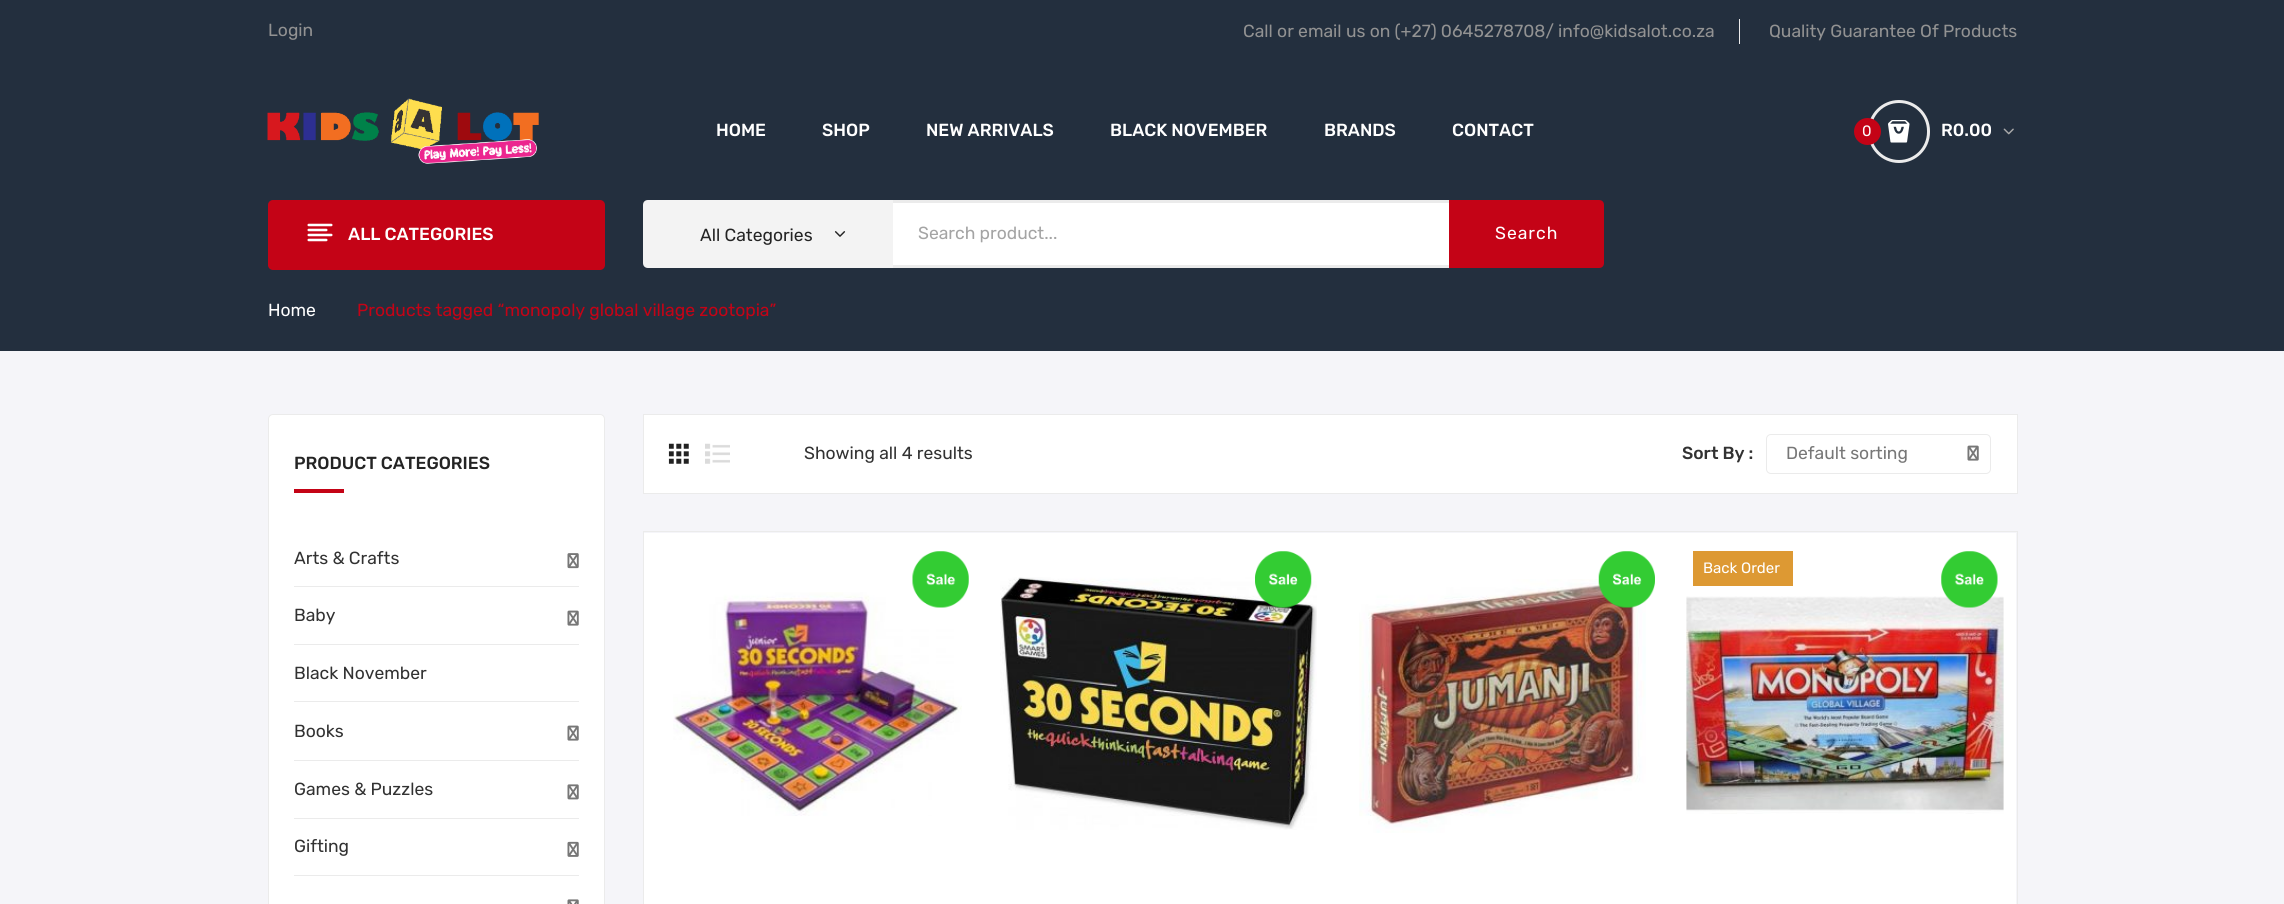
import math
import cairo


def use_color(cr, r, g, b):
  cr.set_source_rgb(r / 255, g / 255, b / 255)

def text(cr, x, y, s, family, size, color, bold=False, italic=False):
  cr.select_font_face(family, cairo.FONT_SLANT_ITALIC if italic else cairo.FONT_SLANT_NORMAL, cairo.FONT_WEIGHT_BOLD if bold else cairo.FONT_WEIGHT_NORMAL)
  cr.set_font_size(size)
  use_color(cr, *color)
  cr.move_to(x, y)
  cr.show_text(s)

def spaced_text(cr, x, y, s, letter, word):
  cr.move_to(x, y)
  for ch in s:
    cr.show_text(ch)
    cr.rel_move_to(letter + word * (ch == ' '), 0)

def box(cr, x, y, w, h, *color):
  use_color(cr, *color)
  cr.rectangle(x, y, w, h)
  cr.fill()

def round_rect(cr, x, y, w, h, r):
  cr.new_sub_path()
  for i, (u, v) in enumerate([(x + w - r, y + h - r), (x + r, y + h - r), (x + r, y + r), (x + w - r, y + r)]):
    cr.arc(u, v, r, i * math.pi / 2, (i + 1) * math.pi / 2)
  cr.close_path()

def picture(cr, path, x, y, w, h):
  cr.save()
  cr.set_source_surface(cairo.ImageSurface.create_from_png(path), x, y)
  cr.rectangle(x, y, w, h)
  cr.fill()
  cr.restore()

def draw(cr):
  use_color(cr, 245, 245, 249)
  cr.paint()
  box(cr, 0, 0, 2284, 351, 35, 47, 62)
  box(cr, 1739, 19, 1, 25, 235, 235, 235)
  picture(cr, "img_01.png", 267, 98, 272, 66)
  round_rect(cr, 1869.5, 101.5, 59, 60, 29.5)
  cr.set_line_width(3)
  cr.stroke()
  use_color(cr, 196, 3, 22)
  cr.arc(1867.5, 131.5, 13.5, 0, 2 * math.pi)
  cr.fill()
  picture(cr, "img_02.png", 1888, 120, 22, 23)
  picture(cr, "img_03.png", 2003, 128, 11, 7)
  round_rect(cr, 268, 200, 337, 70, 5)
  cr.fill()
  picture(cr, "img_04.png", 307, 223, 26, 19)
  use_color(cr, 243, 243, 243)
  cr.new_path()
  cr.move_to(648, 200)
  cr.line_to(893, 200)
  cr.line_to(893, 268)
  cr.line_to(648, 268)
  cr.curve_to(645, 268, 643, 266, 643, 263)
  cr.line_to(643, 205)
  cr.curve_to(643, 202, 645, 200, 648, 200)
  cr.close_path()
  cr.fill()
  picture(cr, "img_05.png", 834, 231, 12, 6)
  box(cr, 893, 203, 556, 62, 255, 255, 255)
  box(cr, 893, 200, 556, 3, 235, 235, 235)
  box(cr, 893, 265, 556, 3, 235, 235, 235)
  use_color(cr, 196, 3, 22)
  cr.new_path()
  cr.move_to(1449, 200)
  cr.line_to(1599, 200)
  cr.curve_to(1602, 200, 1604, 202, 1604, 205)
  cr.line_to(1604, 263)
  cr.curve_to(1604, 266, 1602, 268, 1599, 268)
  cr.line_to(1449, 268)
  cr.close_path()
  cr.fill()
  use_color(cr, 255, 255, 255)
  round_rect(cr, 268.5, 414.5, 336, 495, 4.5)
  cr.fill_preserve()
  use_color(cr, 235, 235, 235)
  cr.set_line_width(1)
  cr.stroke()
  box(cr, 294, 489, 50, 4, 196, 3, 22)
  box(cr, 294, 586, 285, 1, 235, 235, 235)
  picture(cr, "img_06.png", 567, 553, 12, 16)
  box(cr, 294, 644, 285, 1, 235, 235, 235)
  picture(cr, "img_07.png", 567, 610, 12, 16)
  box(cr, 294, 701, 285, 1, 235, 235, 235)
  box(cr, 294, 760, 285, 1, 235, 235, 235)
  picture(cr, "img_07.png", 567, 725, 12, 16)
  box(cr, 294, 818, 285, 1, 235, 235, 235)
  picture(cr, "img_08.png", 567, 784, 12, 16)
  box(cr, 294, 875, 285, 1, 235, 235, 235)
  picture(cr, "img_09.png", 567, 841, 12, 16)
  picture(cr, "img_10.png", 567, 899, 12, 5)
  use_color(cr, 255, 255, 255)
  cr.rectangle(643.5, 414.5, 1374, 79)
  cr.fill_preserve()
  use_color(cr, 235, 235, 235)
  cr.stroke()
  picture(cr, "img_11.png", 668, 443, 21, 21)
  picture(cr, "img_12.png", 705, 443, 25, 21)
  round_rect(cr, 1766.5, 434.5, 224, 39, 4.5)
  cr.stroke()
  picture(cr, "img_07.png", 1967, 445, 12, 16)
  cr.rectangle(643.5, 531.5, 1374, 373)
  cr.stroke()
  box(cr, 644, 533, 1372, 371, 255, 255, 255)
  picture(cr, "img_14.png", 673, 592, 289, 224)
  picture(cr, "img_13.png", 912, 551, 57, 57)
  picture(cr, "img_16.png", 1000, 577, 317, 253)
  picture(cr, "img_15.png", 1255, 551, 57, 57)
  picture(cr, "img_18.png", 1359, 579, 287, 254)
  picture(cr, "img_17.png", 1598, 551, 57, 57)
  box(cr, 1693, 551, 100, 35, 221, 153, 51)
  picture(cr, "img_20.png", 1686, 596, 318, 218)
  picture(cr, "img_19.png", 1941, 551, 57, 57)
  text(cr, 268, 36, "Login", "Rubik", 17.5, (146, 146, 146))
  text(cr, 1243, 37, "Call or email us on (+27) 0645278708/ info@kidsalot.co.za", "Rubik", 17.5, (146, 146, 146))
  text(cr, 1769, 37, "Quality Guarantee Of Products", "Rubik", 17.5, (146, 146, 146))
  text(cr, 716, 136, "HOME", "Rubik Medium", 17.5, (255, 255, 255))
  text(cr, 822, 136, "SHOP", "Rubik Medium", 17.5, (255, 255, 255))
  text(cr, 926, 136, "NEW ARRIVALS", "Rubik Medium", 17.5, (255, 255, 255))
  text(cr, 1110, 136, "BLACK NOVEMBER", "Rubik Medium", 17.5, (255, 255, 255))
  text(cr, 1324, 136, "BRANDS", "Rubik Medium", 17.5, (255, 255, 255))
  text(cr, 1452, 136, "CONTACT", "Rubik Medium", 17.5, (255, 255, 255))
  text(cr, 1862, 136, "0", "Rubik", 15, (255, 255, 255))
  text(cr, 1941, 136, "R0.00", "Rubik Medium", 17.5, (255, 255, 255))
  text(cr, 348, 240, "ALL CATEGORIES", "Rubik Medium", 17.5, (255, 255, 255))
  text(cr, 700, 241, "All Categories", "Rubik", 17.5, (36, 36, 36))
  text(cr, 918, 239, "Search product...", "Rubik", 17.5, (164, 164, 164))
  use_color(cr, 255, 255, 255)
  spaced_text(cr, 1495, 239, "Search", 1, 0)
  text(cr, 268, 316, "Home", "Rubik", 17.5, (255, 255, 255))
  text(cr, 357, 316, "Products tagged “monopoly global village zootopia”", "Rubik", 17.5, (196, 3, 22))
  text(cr, 294, 469, "PRODUCT CATEGORIES", "Rubik Medium", 17.5, (36, 36, 36))
  text(cr, 294, 564, "Arts & Crafts", "Rubik", 17.5, (50, 50, 50))
  text(cr, 294, 621, "Baby", "Rubik", 17.5, (50, 50, 50))
  text(cr, 294, 679, "Black November", "Rubik", 17.5, (50, 50, 50))
  text(cr, 294, 737, "Books", "Rubik", 17.5, (50, 50, 50))
  text(cr, 294, 795, "Games & Puzzles", "Rubik", 17.5, (50, 50, 50))
  text(cr, 294, 852, "Gifting", "Rubik", 17.5, (50, 50, 50))
  text(cr, 804, 459, "Showing all 4 results", "Rubik", 17.5, (50, 50, 50))
  text(cr, 1682, 459, "Sort By :", "Rubik Medium", 17.5, (50, 50, 50))
  text(cr, 1786, 459, "Default sorting", "Rubik", 17.5, (119, 119, 119))
  text(cr, 1703, 573, "Back Order", "Rubik", 15, (255, 255, 255))


surface = cairo.ImageSurface(cairo.FORMAT_RGB24, 2284, 904)
cr = cairo.Context(surface)
options = cairo.FontOptions()
options.set_hint_metrics(cairo.HINT_METRICS_OFF)
options.set_hint_style(cairo.HINT_STYLE_NONE)
cr.set_font_options(options)
cr.set_miter_limit(4)
draw(cr)
surface.write_to_png("out.png")
